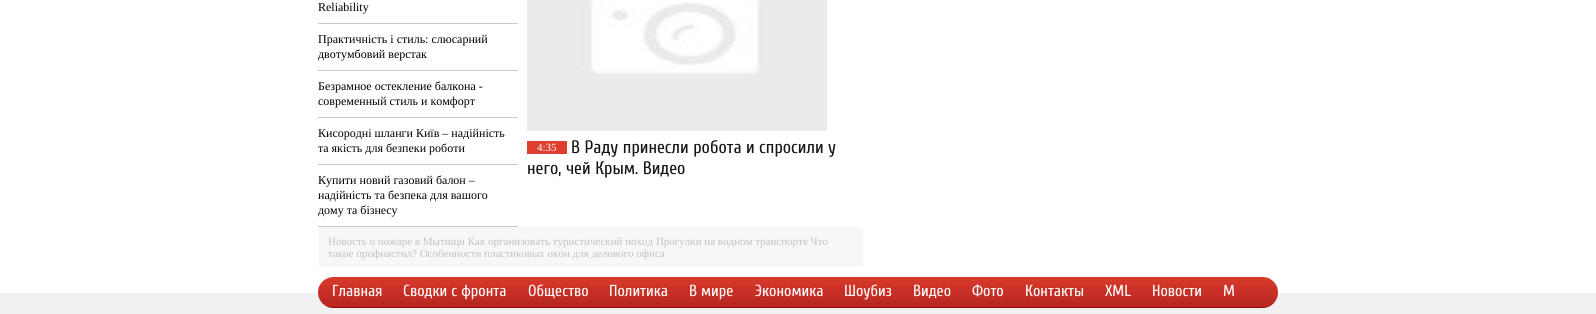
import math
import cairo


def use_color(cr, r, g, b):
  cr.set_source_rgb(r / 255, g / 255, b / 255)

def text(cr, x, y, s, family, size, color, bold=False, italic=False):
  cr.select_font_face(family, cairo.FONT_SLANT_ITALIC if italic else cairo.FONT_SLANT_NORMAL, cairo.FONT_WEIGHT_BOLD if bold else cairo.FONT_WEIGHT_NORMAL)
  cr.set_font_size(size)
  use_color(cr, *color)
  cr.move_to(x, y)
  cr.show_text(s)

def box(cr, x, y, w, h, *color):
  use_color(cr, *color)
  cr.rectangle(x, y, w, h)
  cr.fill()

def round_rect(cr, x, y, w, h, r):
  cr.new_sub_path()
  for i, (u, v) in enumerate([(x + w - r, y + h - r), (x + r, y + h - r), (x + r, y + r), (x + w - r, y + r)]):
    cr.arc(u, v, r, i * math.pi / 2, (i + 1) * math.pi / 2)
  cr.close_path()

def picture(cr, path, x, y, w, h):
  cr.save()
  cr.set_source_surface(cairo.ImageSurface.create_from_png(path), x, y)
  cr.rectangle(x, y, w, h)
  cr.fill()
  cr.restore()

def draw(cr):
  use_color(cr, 255, 255, 255)
  cr.paint()
  box(cr, 318, 23, 200, 1, 202, 202, 202)
  box(cr, 318, 70, 200, 1, 202, 202, 202)
  box(cr, 318, 117, 200, 1, 202, 202, 202)
  box(cr, 318, 164, 200, 1, 202, 202, 202)
  box(cr, 318, 226, 200, 1, 202, 202, 202)
  picture(cr, "img_01.png", 527, 0, 300, 131)
  box(cr, 527, 141, 40, 13, 221, 62, 46)
  use_color(cr, 247, 247, 247)
  round_rect(cr, 318, 227, 545, 40, 3)
  cr.fill()
  box(cr, 0, 293, 1596, 21, 241, 241, 241)
  picture(cr, "img_02.png", 318, 277, 960, 31)
  text(cr, 318, 11, "Reliability", "Liberation Serif", 12, (0, 0, 0))
  text(cr, 318, 43, "Практичність і стиль: слюсарний", "Liberation Serif", 12, (0, 0, 0))
  text(cr, 318, 58, "двотумбовий верстак", "Liberation Serif", 12, (0, 0, 0))
  text(cr, 318, 90, "Безрамное остекление балкона -", "Liberation Serif", 12, (0, 0, 0))
  text(cr, 318, 105, "современный стиль и комфорт", "Liberation Serif", 12, (0, 0, 0))
  text(cr, 318, 137, "Кисородні шланги Київ – надійність", "Liberation Serif", 12, (0, 0, 0))
  text(cr, 318, 152, "та якість для безпеки роботи", "Liberation Serif", 12, (0, 0, 0))
  text(cr, 318, 184, "Купити новий газовий балон –", "Liberation Serif", 12, (0, 0, 0))
  text(cr, 318, 199, "надійність та безпека для вашого", "Liberation Serif", 12, (0, 0, 0))
  text(cr, 318, 214, "дому та бізнесу", "Liberation Serif", 12, (0, 0, 0))
  text(cr, 537, 151, "4:35", "Liberation Serif", 11, (255, 255, 255))
  text(cr, 571, 153, "В Раду принесли робота и спросили у", "Cuprum", 18, (22, 22, 22))
  text(cr, 527, 174, "него, чей Крым. Видео", "Cuprum", 18, (22, 22, 22))
  text(cr, 328, 245, "Новость о пожаре в Мытищи Как организовать туристический поход Прогулки на водном транспорте Что", "Liberation Serif", 11, (194, 194, 194))
  text(cr, 328, 257, "такое профнастил? Особенности пластиковых окон для делового офиса", "Liberation Serif", 11, (194, 194, 194))
  text(cr, 332, 296, "Главная", "Cuprum", 16, (255, 255, 255))
  text(cr, 403, 296, "Сводки с фронта", "Cuprum", 16, (255, 255, 255))
  text(cr, 528, 296, "Общество", "Cuprum", 16, (255, 255, 255))
  text(cr, 609, 296, "Политика", "Cuprum", 16, (255, 255, 255))
  text(cr, 689, 296, "В мире", "Cuprum", 16, (255, 255, 255))
  text(cr, 755, 296, "Экономика", "Cuprum", 16, (255, 255, 255))
  text(cr, 844, 296, "Шоубиз", "Cuprum", 16, (255, 255, 255))
  text(cr, 913, 296, "Видео", "Cuprum", 16, (255, 255, 255))
  text(cr, 972, 296, "Фото", "Cuprum", 16, (255, 255, 255))
  text(cr, 1025, 296, "Контакты", "Cuprum", 16, (255, 255, 255))
  text(cr, 1105, 296, "XML", "Cuprum", 16, (255, 255, 255))
  text(cr, 1152, 296, "Новости", "Cuprum", 16, (255, 255, 255))
  text(cr, 1223, 296, "M", "Cuprum", 16, (255, 255, 255))


surface = cairo.ImageSurface(cairo.FORMAT_RGB24, 1596, 314)
cr = cairo.Context(surface)
options = cairo.FontOptions()
options.set_hint_metrics(cairo.HINT_METRICS_OFF)
options.set_hint_style(cairo.HINT_STYLE_NONE)
cr.set_font_options(options)
cr.set_miter_limit(4)
draw(cr)
surface.write_to_png("out.png")
